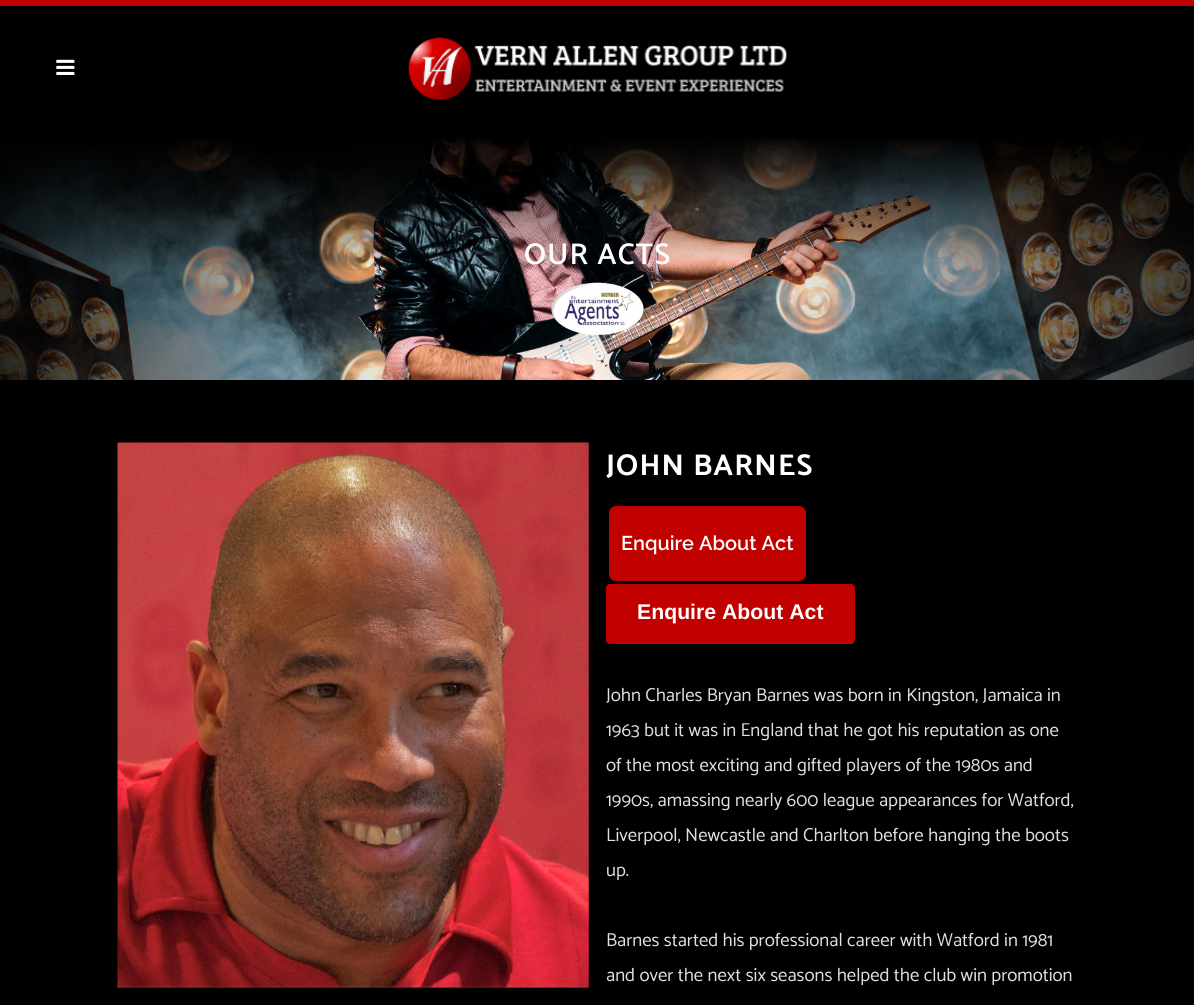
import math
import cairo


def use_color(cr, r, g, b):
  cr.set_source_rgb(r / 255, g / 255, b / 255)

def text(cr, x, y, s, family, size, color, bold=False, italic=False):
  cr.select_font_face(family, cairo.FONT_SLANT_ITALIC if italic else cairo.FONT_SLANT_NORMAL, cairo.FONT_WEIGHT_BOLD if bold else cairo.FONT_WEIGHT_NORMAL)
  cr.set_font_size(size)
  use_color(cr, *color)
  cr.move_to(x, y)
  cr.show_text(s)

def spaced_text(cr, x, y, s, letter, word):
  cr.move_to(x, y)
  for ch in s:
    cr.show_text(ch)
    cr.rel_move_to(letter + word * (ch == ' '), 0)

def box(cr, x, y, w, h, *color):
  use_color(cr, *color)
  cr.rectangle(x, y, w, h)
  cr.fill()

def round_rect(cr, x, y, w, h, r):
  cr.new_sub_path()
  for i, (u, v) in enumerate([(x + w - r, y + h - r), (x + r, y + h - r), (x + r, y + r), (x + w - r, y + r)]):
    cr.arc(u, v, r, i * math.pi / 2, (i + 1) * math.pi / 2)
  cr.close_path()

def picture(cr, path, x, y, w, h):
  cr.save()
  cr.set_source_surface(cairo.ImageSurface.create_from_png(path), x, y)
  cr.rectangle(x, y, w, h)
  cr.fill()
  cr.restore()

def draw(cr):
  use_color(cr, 0, 0, 0)
  cr.paint()
  box(cr, 0, 0, 1194, 6, 193, 0, 0)
  picture(cr, "img_01.png", 56, 59, 19, 16)
  picture(cr, "img_02.png", 408, 37, 379, 63)
  picture(cr, "img_03.png", 0, 138, 1194, 242)
  picture(cr, "img_04.png", 117, 442, 472, 546)
  round_rect(cr, 607.5, 504.5, 200, 78, 8.5)
  cr.fill_preserve()
  use_color(cr, 0, 0, 0)
  cr.set_line_width(3)
  cr.stroke()
  use_color(cr, 193, 0, 0)
  round_rect(cr, 606, 584, 249, 60, 4)
  cr.fill()
  cr.select_font_face("Catamaran SemiBold")
  cr.set_font_size(30)
  use_color(cr, 255, 255, 255)
  spaced_text(cr, 524, 264, "OUR ACTS", 1.25, 0)
  cr.select_font_face("Catamaran", cairo.FONT_SLANT_NORMAL, cairo.FONT_WEIGHT_BOLD)
  spaced_text(cr, 606, 475, "JOHN BARNES", 1.25, 0)
  text(cr, 621, 550, "Enquire About Act", "Raleway SemiBold", 20, (255, 255, 255))
  text(cr, 637, 619, "Enquire About Act", "Liberation Sans", 21.25, (255, 255, 255), bold=True)
  text(cr, 606, 701, "John Charles Bryan Barnes was born in Kingston, Jamaica in", "Catamaran", 18.75, (224, 224, 224))
  text(cr, 606, 736, "1963 but it was in England that he got his reputation as one", "Catamaran", 18.75, (224, 224, 224))
  text(cr, 606, 771, "of the most exciting and gifted players of the 1980s and", "Catamaran", 18.75, (224, 224, 224))
  text(cr, 606, 806, "1990s, amassing nearly 600 league appearances for Watford,", "Catamaran", 18.75, (224, 224, 224))
  text(cr, 606, 841, "Liverpool, Newcastle and Charlton before hanging the boots", "Catamaran", 18.75, (224, 224, 224))
  text(cr, 606, 876, "up.", "Catamaran", 18.75, (224, 224, 224))
  text(cr, 606, 946, "Barnes started his professional career with Watford in 1981", "Catamaran", 18.75, (224, 224, 224))
  text(cr, 606, 981, "and over the next six seasons helped the club win promotion", "Catamaran", 18.75, (224, 224, 224))


surface = cairo.ImageSurface(cairo.FORMAT_RGB24, 1194, 1005)
cr = cairo.Context(surface)
options = cairo.FontOptions()
options.set_hint_metrics(cairo.HINT_METRICS_OFF)
options.set_hint_style(cairo.HINT_STYLE_NONE)
cr.set_font_options(options)
cr.set_miter_limit(4)
draw(cr)
surface.write_to_png("out.png")
